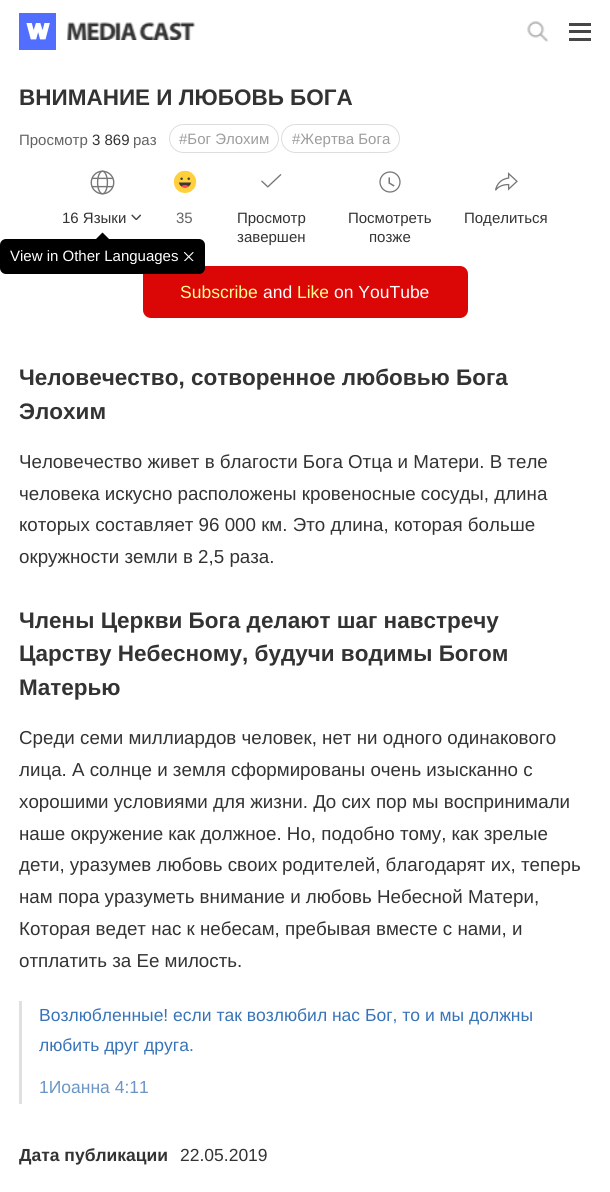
import math
import cairo


def use_color(cr, r, g, b):
  cr.set_source_rgb(r / 255, g / 255, b / 255)

def text(cr, x, y, s, family, size, color, bold=False, italic=False):
  cr.select_font_face(family, cairo.FONT_SLANT_ITALIC if italic else cairo.FONT_SLANT_NORMAL, cairo.FONT_WEIGHT_BOLD if bold else cairo.FONT_WEIGHT_NORMAL)
  cr.set_font_size(size)
  use_color(cr, *color)
  cr.move_to(x, y)
  cr.show_text(s)

def box(cr, x, y, w, h, *color):
  use_color(cr, *color)
  cr.rectangle(x, y, w, h)
  cr.fill()

def round_rect(cr, x, y, w, h, r):
  cr.new_sub_path()
  for i, (u, v) in enumerate([(x + w - r, y + h - r), (x + r, y + h - r), (x + r, y + r), (x + w - r, y + r)]):
    cr.arc(u, v, r, i * math.pi / 2, (i + 1) * math.pi / 2)
  cr.close_path()

def picture(cr, path, x, y, w, h):
  cr.save()
  cr.set_source_surface(cairo.ImageSurface.create_from_png(path), x, y)
  cr.rectangle(x, y, w, h)
  cr.fill()
  cr.restore()

def draw(cr):
  use_color(cr, 255, 255, 255)
  cr.paint()
  box(cr, 19, 13, 37, 37, 82, 110, 255)
  picture(cr, "img_01.png", 26, 23, 24, 17)
  picture(cr, "img_02.png", 67, 22, 129, 18)
  picture(cr, "img_03.png", 527, 21, 22, 21)
  box(cr, 569, 30, 22, 3, 70, 70, 70)
  box(cr, 569, 23, 22, 3, 70, 70, 70)
  box(cr, 569, 38, 22, 3, 70, 70, 70)
  round_rect(cr, 169.5, 124.5, 109, 28, 14)
  use_color(cr, 221, 221, 221)
  cr.set_line_width(1)
  cr.stroke()
  round_rect(cr, 281.5, 124.5, 118, 28, 14)
  cr.stroke()
  picture(cr, "img_04.png", 90, 170, 25, 25)
  picture(cr, "img_05.png", 131, 214, 10, 6)
  use_color(cr, 0, 0, 0)
  cr.new_path()
  cr.move_to(109, 239)
  cr.line_to(96, 239)
  cr.line_to(102.5, 232.5)
  cr.close_path()
  cr.fill()
  use_color(cr, 219, 7, 7)
  round_rect(cr, 143, 266, 325, 52, 8)
  cr.fill()
  use_color(cr, 0, 0, 0)
  round_rect(cr, 0, 239, 205, 35, 6)
  cr.fill()
  cr.save()
  cr.rectangle(183, 251, 12, 10)
  cr.clip()
  cr.new_path()
  cr.move_to(193, 252.5)
  cr.line_to(184.5, 261)
  cr.move_to(193, 261)
  cr.line_to(184.5, 252.5)
  use_color(cr, 255, 255, 255)
  cr.set_line_width(1.1)
  cr.set_line_cap(cairo.LINE_CAP_ROUND)
  cr.stroke()
  cr.restore()
  picture(cr, "img_06.png", 173, 170, 24, 23)
  picture(cr, "img_07.png", 261, 174, 21, 14)
  picture(cr, "img_08.png", 379, 171, 22, 22)
  picture(cr, "img_09.png", 495, 172, 23, 19)
  box(cr, 19, 1001, 3, 103, 224, 224, 224)
  text(cr, 19, 105, "ВНИМАНИЕ И ЛЮБОВЬ БОГА", "Liberation Sans", 22.5, (51, 51, 51), bold=True)
  text(cr, 19, 145, "Просмотр", "Liberation Sans", 15, (99, 99, 99))
  text(cr, 92, 145, "3 869", "Liberation Sans", 15, (51, 51, 51))
  text(cr, 133, 145, "раз", "Liberation Sans", 15, (99, 99, 99))
  text(cr, 179, 144, "#Бог Элохим", "Liberation Sans", 15, (157, 157, 157))
  text(cr, 292, 144, "#Жертва Бога", "Liberation Sans", 15, (157, 157, 157))
  text(cr, 62, 223, "16 Языки", "Liberation Sans", 15, (51, 51, 51))
  text(cr, 10, 261, "View in Other Languages", "Liberation Sans", 15, (255, 255, 255))
  text(cr, 176, 223, "35", "Liberation Sans", 15, (99, 99, 99))
  text(cr, 237, 223, "Просмотр", "Liberation Sans", 15, (51, 51, 51))
  text(cr, 237, 242, "завершен", "Liberation Sans", 15, (51, 51, 51))
  text(cr, 348, 223, "Посмотреть", "Liberation Sans", 15, (51, 51, 51))
  text(cr, 369, 242, "позже", "Liberation Sans", 15, (51, 51, 51))
  text(cr, 464, 223, "Поделиться", "Liberation Sans", 15, (51, 51, 51))
  text(cr, 180, 298, "Subscribe", "Liberation Sans", 17.5, (251, 255, 142))
  text(cr, 263, 298, "and", "Liberation Sans", 17.5, (255, 255, 255))
  text(cr, 297, 298, "Like", "Liberation Sans", 17.5, (251, 255, 142))
  text(cr, 334, 298, "on YouTube", "Liberation Sans", 17.5, (255, 255, 255))
  text(cr, 19, 385, "Человечество, сотворенное любовью Бога", "Liberation Sans", 22.5, (51, 51, 51), bold=True)
  text(cr, 19, 419, "Элохим", "Liberation Sans", 22.5, (51, 51, 51), bold=True)
  text(cr, 19, 468, "Человечество живет в благости Бога Отца и Матери. В теле", "Liberation Sans", 18.75, (51, 51, 51))
  text(cr, 19, 500, "человека искусно расположены кровеносные сосуды, длина", "Liberation Sans", 18.75, (51, 51, 51))
  text(cr, 19, 531, "которых составляет 96 000 км. Это длина, которая больше", "Liberation Sans", 18.75, (51, 51, 51))
  text(cr, 19, 563, "окружности земли в 2,5 раза.", "Liberation Sans", 18.75, (51, 51, 51))
  text(cr, 19, 628, "Члены Церкви Бога делают шаг навстречу", "Liberation Sans", 22.5, (51, 51, 51), bold=True)
  text(cr, 19, 661, "Царству Небесному, будучи водимы Богом", "Liberation Sans", 22.5, (51, 51, 51), bold=True)
  text(cr, 19, 695, "Матерью", "Liberation Sans", 22.5, (51, 51, 51), bold=True)
  text(cr, 19, 744, "Среди семи миллиардов человек, нет ни одного одинакового", "Liberation Sans", 18.75, (51, 51, 51))
  text(cr, 19, 776, "лица. А солнце и земля сформированы очень изысканно с", "Liberation Sans", 18.75, (51, 51, 51))
  text(cr, 19, 808, "хорошими условиями для жизни. До сих пор мы воспринимали", "Liberation Sans", 18.75, (51, 51, 51))
  text(cr, 19, 840, "наше окружение как должное. Но, подобно тому, как зрелые", "Liberation Sans", 18.75, (51, 51, 51))
  cr.save()
  cr.rectangle(19, 361, 572, 743)
  cr.clip()
  text(cr, 19, 871, "дети, уразумев любовь своих", "Liberation Sans", 18.75, (51, 51, 51))
  cr.restore()
  text(cr, 282, 871, "родителей, благодарят их, теперь", "Liberation Sans", 18.75, (51, 51, 51))
  text(cr, 19, 903, "нам пора уразуметь внимание и любовь Небесной Матери,", "Liberation Sans", 18.75, (51, 51, 51))
  text(cr, 19, 935, "Которая ведет нас к небесам, пребывая вместе с нами, и", "Liberation Sans", 18.75, (51, 51, 51))
  text(cr, 19, 967, "отплатить за Ее милость.", "Liberation Sans", 18.75, (51, 51, 51))
  text(cr, 39, 1021, "Возлюбленные! если так возлюбил нас Бог, то и мы должны", "Liberation Sans", 17.5, (55, 115, 185))
  text(cr, 39, 1051, "любить друг друга.", "Liberation Sans", 17.5, (55, 115, 185))
  text(cr, 39, 1093, "1Иоанна 4:11", "Liberation Sans", 17.5, (107, 149, 198))
  cr.save()
  cr.rectangle(19, 1135, 572, 34)
  cr.clip()
  text(cr, 19, 1161, "Дата публикации", "Liberation Sans", 17.5, (51, 51, 51), bold=True)
  cr.restore()
  text(cr, 180, 1161, "22.05.2019", "Liberation Sans", 17.5, (51, 51, 51))


surface = cairo.ImageSurface(cairo.FORMAT_RGB24, 610, 1192)
cr = cairo.Context(surface)
options = cairo.FontOptions()
options.set_hint_metrics(cairo.HINT_METRICS_OFF)
options.set_hint_style(cairo.HINT_STYLE_NONE)
cr.set_font_options(options)
cr.set_miter_limit(4)
draw(cr)
surface.write_to_png("out.png")
